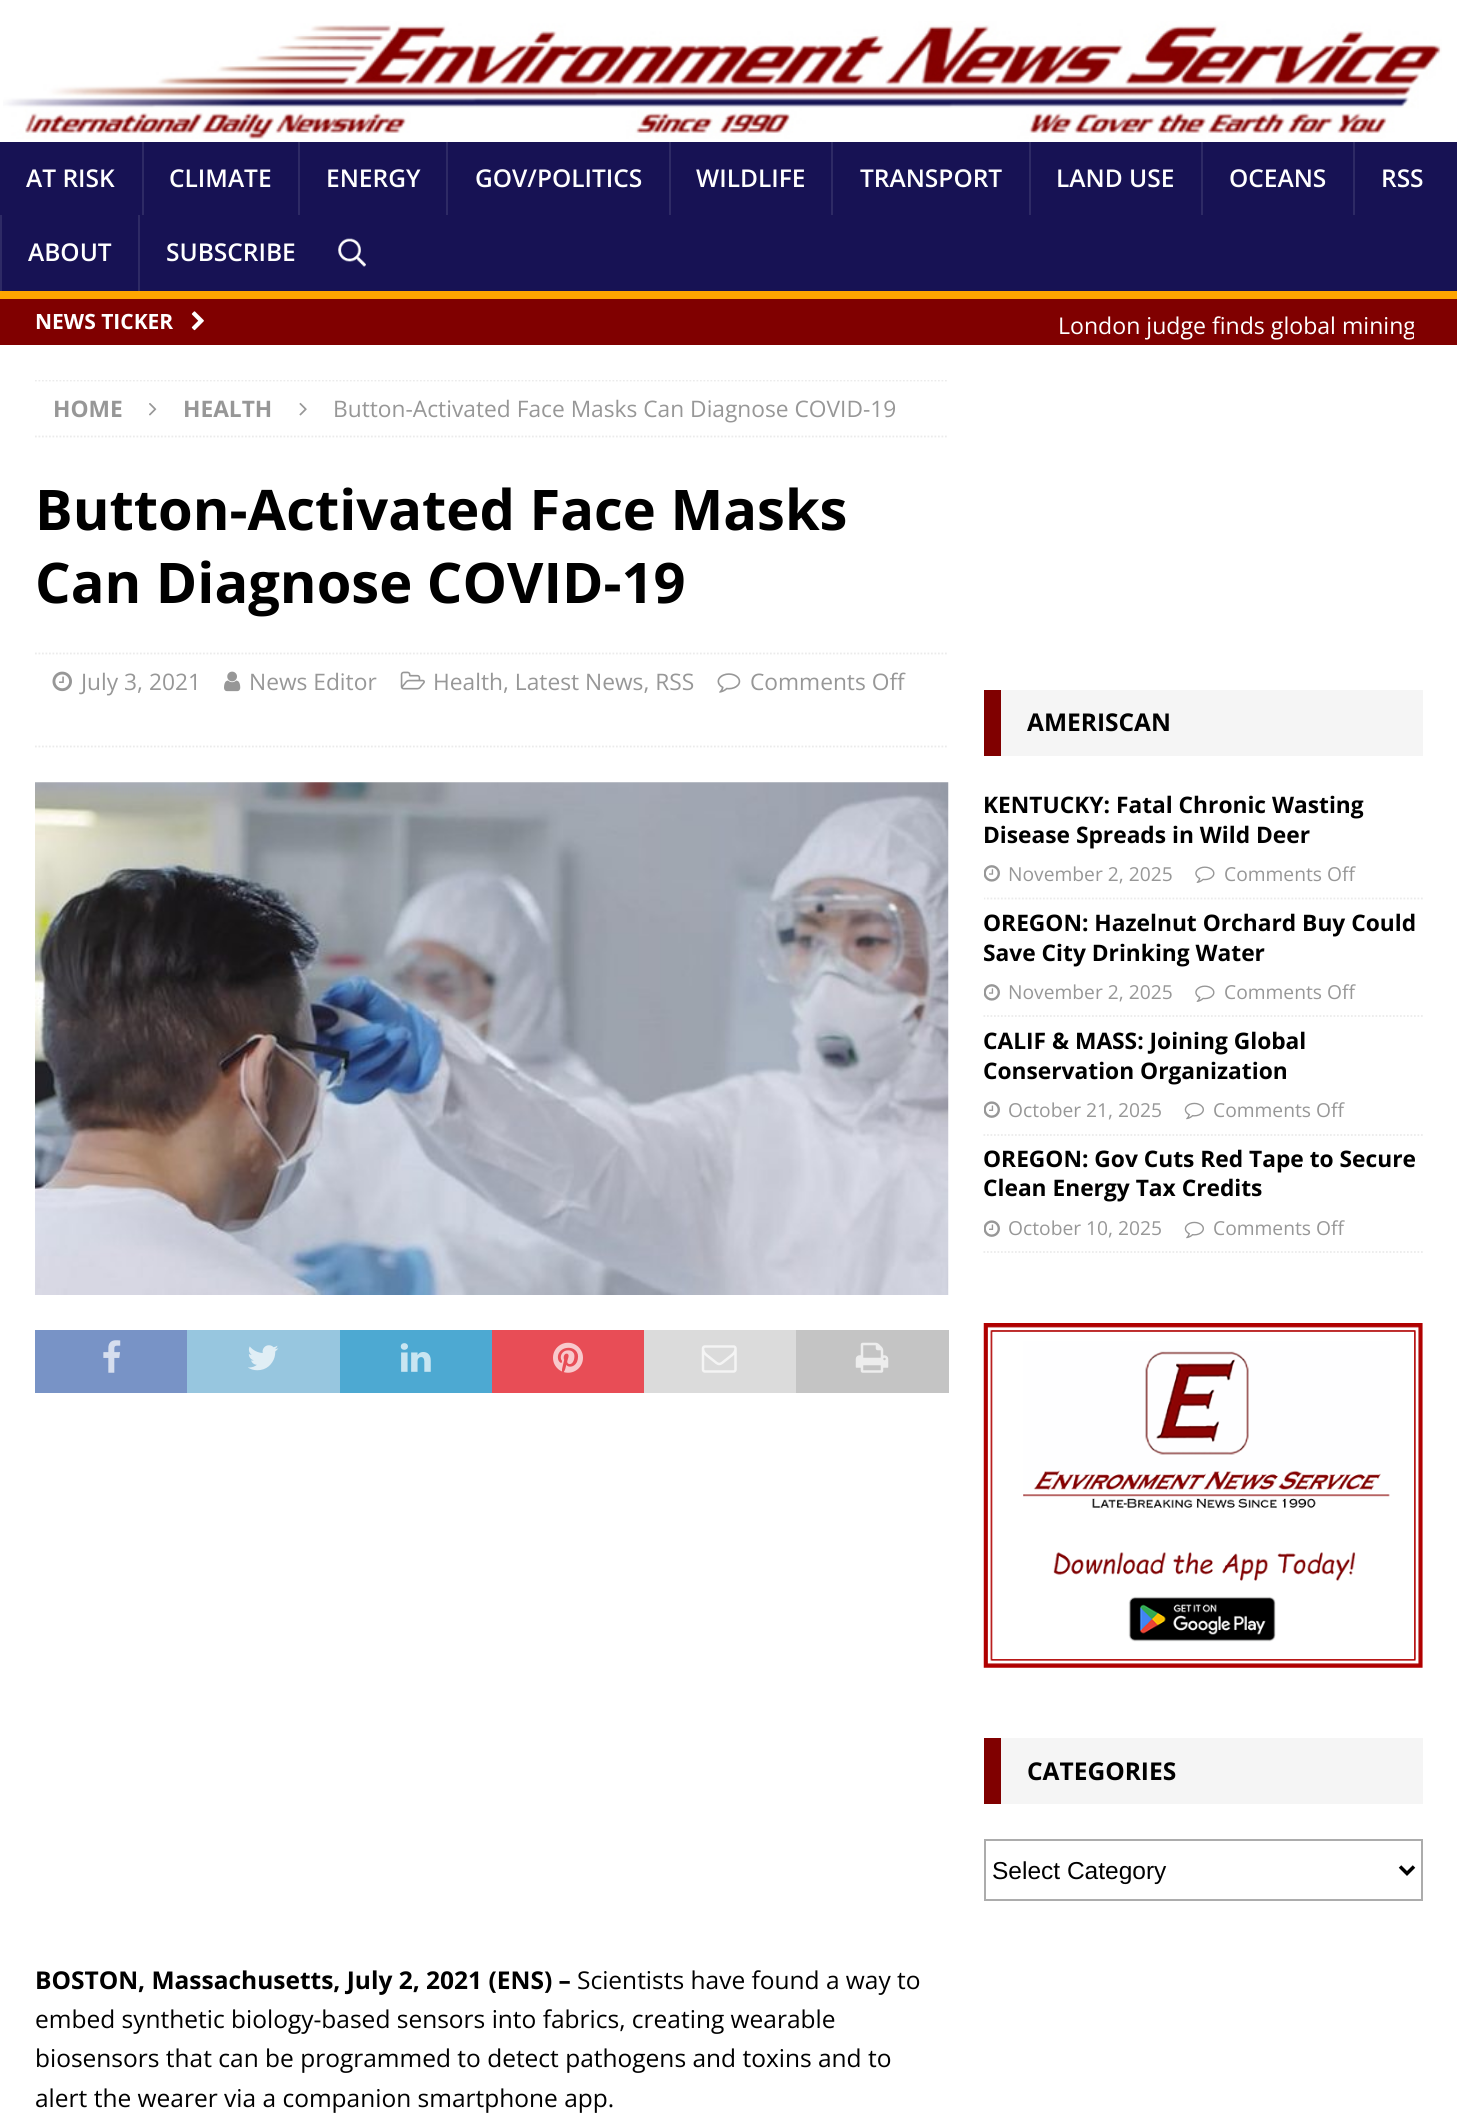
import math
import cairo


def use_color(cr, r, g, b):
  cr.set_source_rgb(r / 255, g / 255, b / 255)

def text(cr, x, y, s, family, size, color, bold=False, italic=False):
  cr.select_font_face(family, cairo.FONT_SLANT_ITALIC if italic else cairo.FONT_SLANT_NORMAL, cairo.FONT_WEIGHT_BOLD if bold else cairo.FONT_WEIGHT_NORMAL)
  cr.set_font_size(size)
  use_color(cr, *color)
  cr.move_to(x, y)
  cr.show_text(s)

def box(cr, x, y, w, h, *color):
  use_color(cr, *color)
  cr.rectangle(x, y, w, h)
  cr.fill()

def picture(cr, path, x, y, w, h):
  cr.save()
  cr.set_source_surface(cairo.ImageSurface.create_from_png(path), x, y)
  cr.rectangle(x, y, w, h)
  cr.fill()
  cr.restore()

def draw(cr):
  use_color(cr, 255, 255, 255)
  cr.paint()
  picture(cr, "img_01.png", 3, 21, 1439, 118)
  box(cr, 0, 142, 1457, 149, 23, 18, 84)
  box(cr, 142, 142, 2, 73, 46, 42, 101)
  box(cr, 298, 142, 2, 73, 46, 42, 101)
  box(cr, 446, 142, 2, 73, 46, 42, 101)
  box(cr, 669, 142, 2, 73, 46, 42, 101)
  box(cr, 831, 142, 2, 73, 46, 42, 101)
  box(cr, 1029, 142, 2, 73, 46, 42, 101)
  box(cr, 1201, 142, 2, 73, 46, 42, 101)
  box(cr, 1353, 142, 2, 73, 46, 42, 101)
  box(cr, 0, 215, 2, 76, 46, 42, 101)
  box(cr, 138, 215, 2, 76, 46, 42, 101)
  picture(cr, "img_02.png", 338, 238, 28, 29)
  box(cr, 0, 299, 1457, 46, 128, 0, 0)
  box(cr, 0, 291, 1457, 8, 255, 165, 0)
  picture(cr, "img_03.png", 191, 311, 13, 20)
  cr.save()
  cr.rectangle(35, 380, 914, 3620)
  cr.clip()
  cr.new_path()
  cr.move_to(35, 380.5)
  cr.line_to(948.5, 380.5)
  use_color(cr, 235, 235, 235)
  cr.set_line_width(1.8)
  cr.set_dash([1.75, 1.75])
  cr.stroke()
  cr.restore()
  cr.new_path()
  cr.move_to(35, 436.5)
  cr.line_to(948.5, 436.5)
  use_color(cr, 235, 235, 235)
  cr.set_line_width(1.8)
  cr.set_dash([1.75, 1.75])
  cr.stroke()
  picture(cr, "img_04.png", 149, 403, 8, 13)
  picture(cr, "img_05.png", 299, 402, 8, 14)
  cr.new_path()
  cr.move_to(35, 653.5)
  cr.line_to(948.5, 653.5)
  cr.stroke()
  cr.new_path()
  cr.move_to(35, 746.5)
  cr.line_to(948.5, 746.5)
  cr.stroke()
  picture(cr, "img_06.png", 52, 671, 20, 21)
  picture(cr, "img_07.png", 224, 671, 17, 21)
  picture(cr, "img_08.png", 400, 671, 25, 19)
  picture(cr, "img_09.png", 717, 673, 24, 20)
  picture(cr, "img_10.png", 35, 782, 914, 513)
  box(cr, 35, 1330, 152, 63, 120, 147, 198)
  picture(cr, "img_11.png", 103, 1340, 18, 33)
  box(cr, 187, 1330, 153, 63, 151, 198, 223)
  picture(cr, "img_12.png", 248, 1345, 31, 26)
  box(cr, 340, 1330, 152, 63, 77, 169, 210)
  picture(cr, "img_13.png", 400, 1343, 31, 29)
  box(cr, 492, 1330, 152, 63, 232, 77, 86)
  picture(cr, "img_14.png", 553, 1342, 30, 31)
  box(cr, 644, 1330, 152, 63, 219, 219, 219)
  picture(cr, "img_15.png", 701, 1345, 36, 28)
  box(cr, 796, 1330, 153, 63, 196, 196, 196)
  picture(cr, "img_16.png", 855, 1342, 34, 31)
  box(cr, 1001, 690, 422, 66, 245, 245, 245)
  box(cr, 984, 690, 17, 66, 128, 0, 0)
  cr.save()
  cr.rectangle(984, 690, 439, 563)
  cr.clip()
  cr.new_path()
  cr.move_to(983.5, 898.5)
  cr.line_to(1423, 898.5)
  use_color(cr, 235, 235, 235)
  cr.stroke()
  cr.restore()
  picture(cr, "img_17.png", 984, 865, 16, 17)
  picture(cr, "img_18.png", 1195, 866, 20, 17)
  cr.new_path()
  cr.move_to(983.5, 1016)
  cr.line_to(1423, 1016)
  use_color(cr, 235, 235, 235)
  cr.stroke()
  picture(cr, "img_17.png", 984, 984, 16, 17)
  picture(cr, "img_19.png", 1195, 985, 20, 17)
  cr.new_path()
  cr.move_to(983.5, 1135)
  cr.line_to(1423, 1135)
  cr.stroke()
  picture(cr, "img_20.png", 984, 1101, 16, 17)
  picture(cr, "img_21.png", 1184, 1102, 20, 18)
  cr.new_path()
  cr.move_to(983.5, 1252)
  cr.line_to(1423, 1252)
  cr.stroke()
  picture(cr, "img_20.png", 984, 1220, 16, 17)
  picture(cr, "img_21.png", 1184, 1221, 20, 18)
  picture(cr, "img_22.png", 983, 1323, 440, 345)
  box(cr, 1001, 1738, 422, 66, 245, 245, 245)
  box(cr, 984, 1738, 17, 66, 128, 0, 0)
  cr.rectangle(985, 1840, 437, 60)
  use_color(cr, 172, 172, 172)
  cr.set_line_width(2)
  cr.set_dash([])
  cr.stroke()
  cr.new_path()
  cr.move_to(1400, 1866.5)
  cr.line_to(1407, 1873.5)
  cr.line_to(1414, 1866.5)
  use_color(cr, 0, 0, 0)
  cr.set_line_width(3.5)
  cr.stroke()
  text(cr, 26, 187, "AT RISK", "Open Sans SemiBold", 24.5, (255, 255, 255))
  text(cr, 169, 187, "CLIMATE", "Open Sans SemiBold", 24.5, (255, 255, 255))
  text(cr, 326, 187, "ENERGY", "Open Sans SemiBold", 24.5, (255, 255, 255))
  text(cr, 475, 187, "GOV/POLITICS", "Open Sans SemiBold", 24.5, (255, 255, 255))
  text(cr, 696, 187, "WILDLIFE", "Open Sans SemiBold", 24.5, (255, 255, 255))
  text(cr, 860, 187, "TRANSPORT", "Open Sans SemiBold", 24.5, (255, 255, 255))
  text(cr, 1056, 187, "LAND USE", "Open Sans SemiBold", 24.5, (255, 255, 255))
  text(cr, 1229, 187, "OCEANS", "Open Sans SemiBold", 24.5, (255, 255, 255))
  text(cr, 1381, 187, "RSS", "Open Sans SemiBold", 24.5, (255, 255, 255))
  text(cr, 28, 261, "ABOUT", "Open Sans SemiBold", 24.5, (255, 255, 255))
  text(cr, 166, 261, "SUBSCRIBE", "Open Sans SemiBold", 24.5, (255, 255, 255))
  text(cr, 35, 329, "NEWS TICKER", "Open Sans", 21, (255, 255, 255), bold=True)
  cr.save()
  cr.rectangle(242, 299, 1172, 53)
  cr.clip()
  text(cr, 1058, 334, "London judge finds global mining", "Open Sans", 23.1, (255, 255, 255))
  cr.restore()
  text(cr, 53, 417, "HOME", "Open Sans", 22.75, (151, 151, 151), bold=True)
  text(cr, 183, 417, "HEALTH", "Open Sans", 22.75, (151, 151, 151), bold=True)
  text(cr, 333, 417, "Button-Activated Face Masks Can Diagnose COVID-19", "Open Sans", 22.75, (151, 151, 151))
  text(cr, 35, 530, "Button-Activated Face Masks", "Open Sans", 56, (0, 0, 0), bold=True)
  text(cr, 35, 603, "Can Diagnose COVID-19", "Open Sans", 56, (0, 0, 0), bold=True)
  text(cr, 81, 690, "July 3, 2021", "Open Sans", 22.75, (151, 151, 151))
  text(cr, 249, 690, "News Editor", "Open Sans", 22.75, (151, 151, 151))
  text(cr, 433, 690, "Health, Latest News, RSS", "Open Sans", 22.75, (151, 151, 151))
  text(cr, 750, 690, "Comments Off", "Open Sans", 22.75, (151, 151, 151))
  text(cr, 35, 1989, "BOSTON, Massachusetts, July 2, 2021 (ENS) –", "Open Sans", 24.5, (0, 0, 0), bold=True)
  text(cr, 577, 1989, "Scientists have found a way to", "Open Sans", 24.5, (0, 0, 0))
  text(cr, 35, 2028, "embed synthetic biology-based sensors into fabrics, creating wearable", "Open Sans", 24.5, (0, 0, 0))
  text(cr, 35, 2067, "biosensors that can be programmed to detect pathogens and toxins and to", "Open Sans", 24.5, (0, 0, 0))
  text(cr, 35, 2107, "alert the wearer via a companion smartphone app.", "Open Sans", 24.5, (0, 0, 0))
  text(cr, 1027, 731, "AMERISCAN", "Open Sans", 24.5, (0, 0, 0), bold=True)
  text(cr, 983, 813, "KENTUCKY: Fatal Chronic Wasting", "Open Sans", 22.75, (0, 0, 0), bold=True)
  text(cr, 983, 843, "Disease Spreads in Wild Deer", "Open Sans", 22.75, (0, 0, 0), bold=True)
  text(cr, 1008, 881, "November 2, 2025", "Open Sans", 19.25, (151, 151, 151))
  text(cr, 1224, 881, "Comments Off", "Open Sans", 19.25, (151, 151, 151))
  text(cr, 983, 931, "OREGON: Hazelnut Orchard Buy Could", "Open Sans", 22.75, (0, 0, 0), bold=True)
  text(cr, 983, 961, "Save City Drinking Water", "Open Sans", 22.75, (0, 0, 0), bold=True)
  text(cr, 1008, 999, "November 2, 2025", "Open Sans", 19.25, (151, 151, 151))
  text(cr, 1224, 999, "Comments Off", "Open Sans", 19.25, (151, 151, 151))
  text(cr, 983, 1049, "CALIF & MASS: Joining Global", "Open Sans", 22.75, (0, 0, 0), bold=True)
  text(cr, 983, 1079, "Conservation Organization", "Open Sans", 22.75, (0, 0, 0), bold=True)
  text(cr, 1008, 1117, "October 21, 2025", "Open Sans", 19.25, (151, 151, 151))
  text(cr, 1213, 1117, "Comments Off", "Open Sans", 19.25, (151, 151, 151))
  text(cr, 983, 1167, "OREGON: Gov Cuts Red Tape to Secure", "Open Sans", 22.75, (0, 0, 0), bold=True)
  text(cr, 983, 1196, "Clean Energy Tax Credits", "Open Sans", 22.75, (0, 0, 0), bold=True)
  text(cr, 1008, 1235, "October 10, 2025", "Open Sans", 19.25, (151, 151, 151))
  text(cr, 1213, 1235, "Comments Off", "Open Sans", 19.25, (151, 151, 151))
  text(cr, 1027, 1780, "CATEGORIES", "Open Sans", 24.5, (0, 0, 0), bold=True)
  text(cr, 992, 1879, "Select Category", "Liberation Sans", 24.5, (0, 0, 0))


surface = cairo.ImageSurface(cairo.FORMAT_RGB24, 1457, 2128)
cr = cairo.Context(surface)
options = cairo.FontOptions()
options.set_hint_metrics(cairo.HINT_METRICS_OFF)
options.set_hint_style(cairo.HINT_STYLE_NONE)
cr.set_font_options(options)
cr.set_miter_limit(4)
draw(cr)
surface.write_to_png("out.png")
